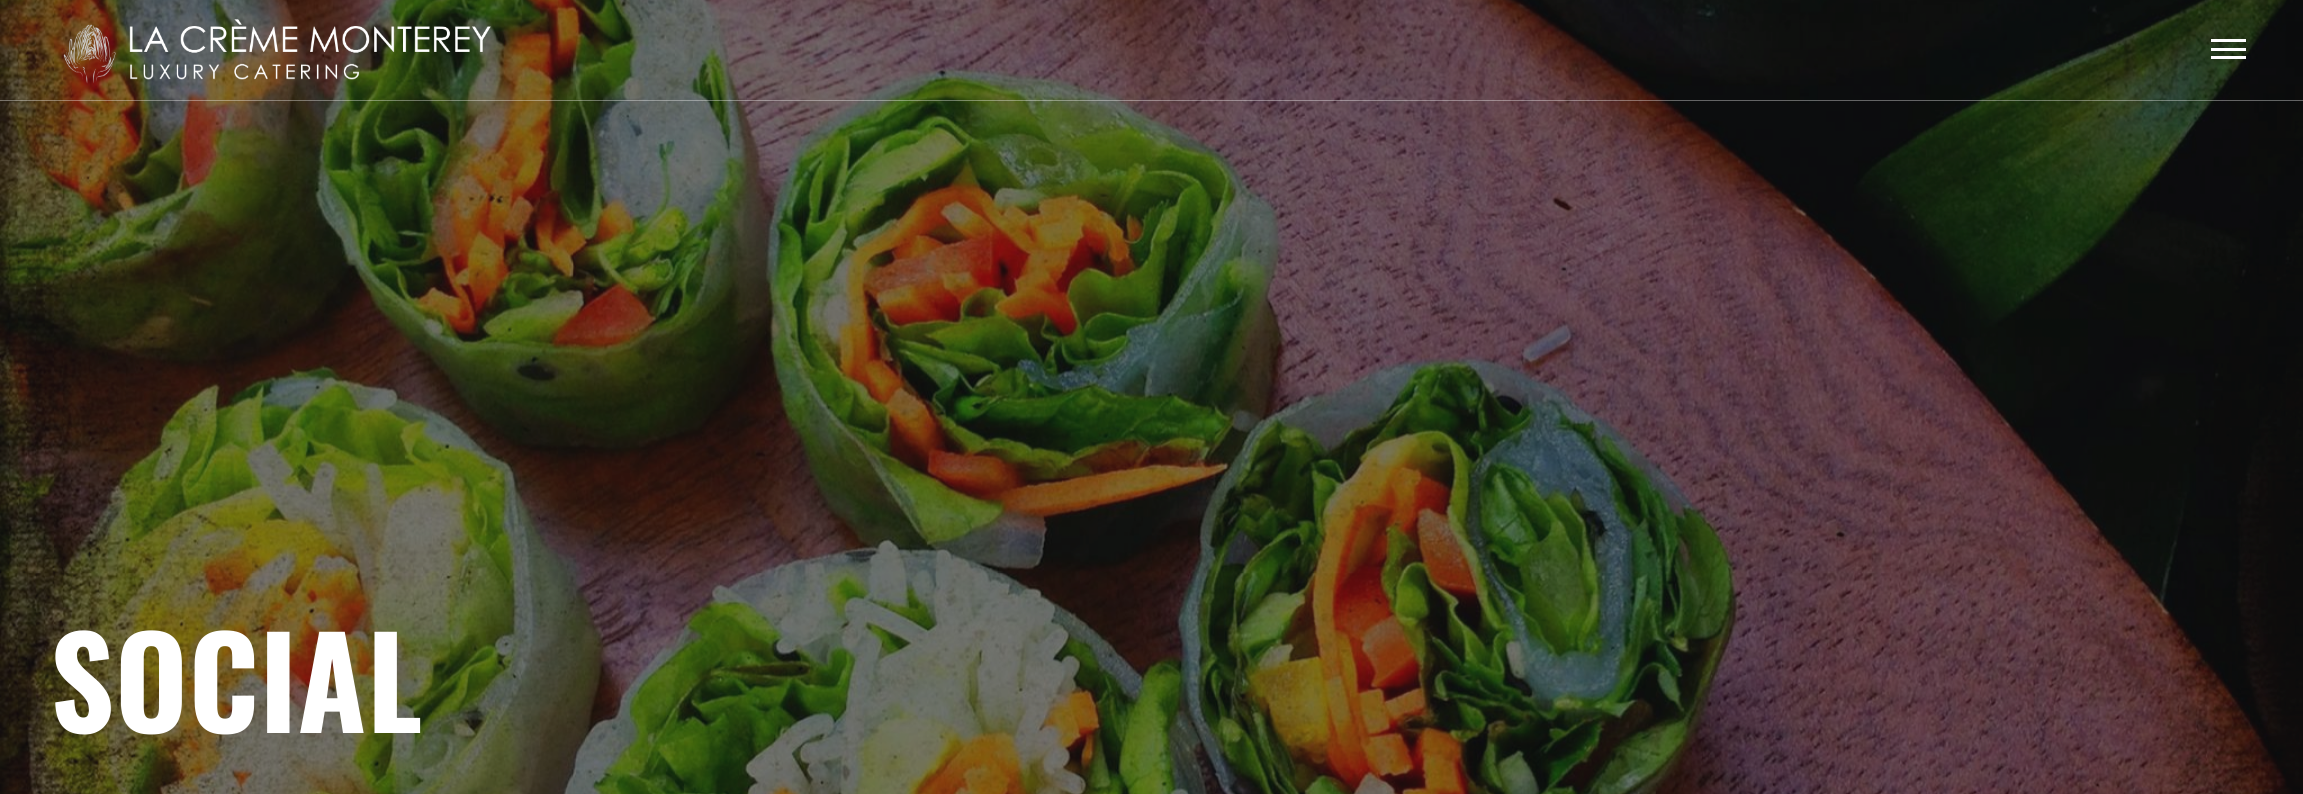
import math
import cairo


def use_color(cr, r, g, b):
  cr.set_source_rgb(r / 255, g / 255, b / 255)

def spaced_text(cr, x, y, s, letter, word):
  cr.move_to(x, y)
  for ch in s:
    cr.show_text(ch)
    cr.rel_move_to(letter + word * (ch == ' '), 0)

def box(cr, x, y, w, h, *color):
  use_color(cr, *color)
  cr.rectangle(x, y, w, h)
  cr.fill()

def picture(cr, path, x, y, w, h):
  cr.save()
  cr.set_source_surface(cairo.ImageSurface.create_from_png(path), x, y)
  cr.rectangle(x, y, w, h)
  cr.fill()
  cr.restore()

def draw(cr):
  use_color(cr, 255, 255, 255)
  cr.paint()
  picture(cr, "img_02.png", 0, 0, 2303, 794)
  cr.set_source_rgba(1, 1, 1, 0.36)
  cr.rectangle(0, 100, 2303, 1)
  cr.fill()
  picture(cr, "img_01.png", 63, 19, 428, 65)
  box(cr, 2211, 48, 35, 3, 255, 255, 255)
  box(cr, 2211, 39, 35, 3, 255, 255, 255)
  box(cr, 2211, 56, 35, 3, 255, 255, 255)
  cr.select_font_face("Oswald", cairo.FONT_SLANT_NORMAL, cairo.FONT_WEIGHT_BOLD)
  cr.set_font_size(125)
  spaced_text(cr, 50, 733, "SOCIAL", 0.5, 0)


surface = cairo.ImageSurface(cairo.FORMAT_RGB24, 2303, 794)
cr = cairo.Context(surface)
options = cairo.FontOptions()
options.set_hint_metrics(cairo.HINT_METRICS_OFF)
options.set_hint_style(cairo.HINT_STYLE_NONE)
cr.set_font_options(options)
cr.set_miter_limit(4)
draw(cr)
surface.write_to_png("out.png")
